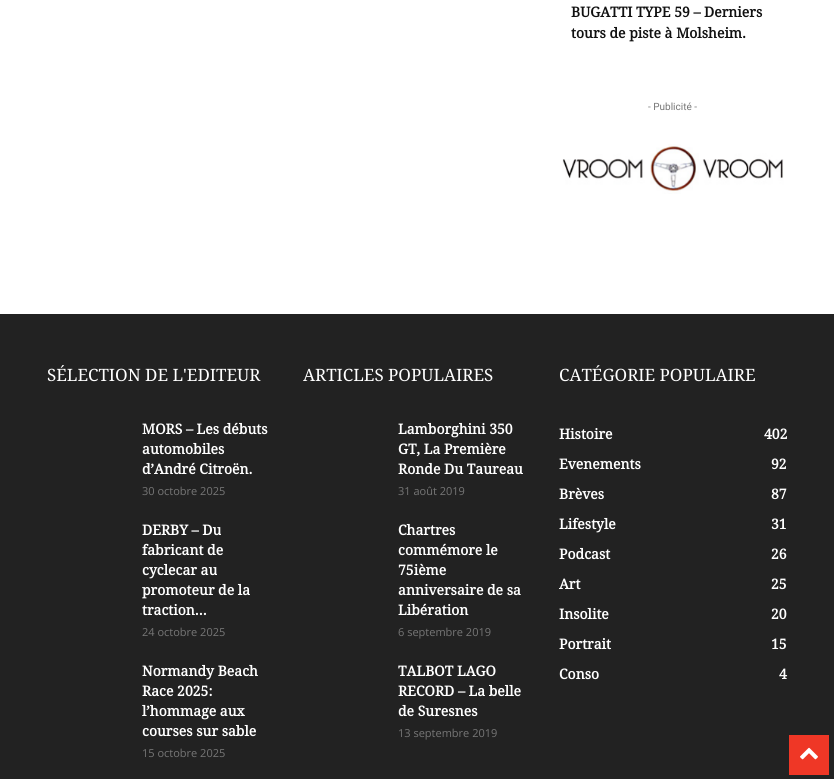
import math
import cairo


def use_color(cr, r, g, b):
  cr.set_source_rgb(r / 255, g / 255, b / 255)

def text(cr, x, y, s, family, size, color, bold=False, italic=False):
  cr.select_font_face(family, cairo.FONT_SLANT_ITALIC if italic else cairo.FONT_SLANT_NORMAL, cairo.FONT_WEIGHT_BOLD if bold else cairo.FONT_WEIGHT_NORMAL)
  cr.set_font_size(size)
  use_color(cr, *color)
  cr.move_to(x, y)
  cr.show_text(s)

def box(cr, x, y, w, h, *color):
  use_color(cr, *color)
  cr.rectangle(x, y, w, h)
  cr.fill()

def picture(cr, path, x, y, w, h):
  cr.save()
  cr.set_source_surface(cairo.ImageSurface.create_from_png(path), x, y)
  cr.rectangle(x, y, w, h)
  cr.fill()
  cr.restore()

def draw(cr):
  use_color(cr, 255, 255, 255)
  cr.paint()
  picture(cr, "img_01.png", 562, 144, 222, 50)
  box(cr, 0, 314, 834, 465, 34, 34, 34)
  box(cr, 789, 735, 40, 40, 239, 55, 38)
  picture(cr, "img_02.png", 800, 747, 18, 13)
  text(cr, 571, 17, "BUGATTI TYPE 59 – Derniers", "Droid Serif", 14, (17, 17, 17), bold=True)
  text(cr, 571, 38, "tours de piste à Molsheim.", "Droid Serif", 14, (17, 17, 17), bold=True)
  text(cr, 648, 110, "- Publicité -", "Roboto", 10, (118, 118, 118))
  text(cr, 47, 381, "SÉLECTION DE L'EDITEUR", "Droid Serif", 17, (255, 255, 255))
  text(cr, 142, 434, "MORS – Les débuts", "Droid Serif", 14, (255, 255, 255), bold=True)
  text(cr, 142, 454, "automobiles", "Droid Serif", 14, (255, 255, 255), bold=True)
  text(cr, 142, 474, "d’André Citroën.", "Droid Serif", 14, (255, 255, 255), bold=True)
  text(cr, 142, 495, "30 octobre 2025", "Open Sans", 11, (118, 118, 118))
  text(cr, 142, 535, "DERBY – Du", "Droid Serif", 14, (255, 255, 255), bold=True)
  text(cr, 142, 555, "fabricant de", "Droid Serif", 14, (255, 255, 255), bold=True)
  text(cr, 142, 575, "cyclecar au", "Droid Serif", 14, (255, 255, 255), bold=True)
  text(cr, 142, 595, "promoteur de la", "Droid Serif", 14, (255, 255, 255), bold=True)
  text(cr, 142, 615, "traction...", "Droid Serif", 14, (255, 255, 255), bold=True)
  text(cr, 142, 636, "24 octobre 2025", "Open Sans", 11, (118, 118, 118))
  text(cr, 142, 676, "Normandy Beach", "Droid Serif", 14, (255, 255, 255), bold=True)
  text(cr, 142, 696, "Race 2025:", "Droid Serif", 14, (255, 255, 255), bold=True)
  text(cr, 142, 716, "l’hommage aux", "Droid Serif", 14, (255, 255, 255), bold=True)
  text(cr, 142, 736, "courses sur sable", "Droid Serif", 14, (255, 255, 255), bold=True)
  text(cr, 142, 757, "15 octobre 2025", "Open Sans", 11, (118, 118, 118))
  text(cr, 303, 381, "ARTICLES POPULAIRES", "Droid Serif", 17, (255, 255, 255))
  text(cr, 398, 434, "Lamborghini 350", "Droid Serif", 14, (255, 255, 255), bold=True)
  text(cr, 398, 454, "GT, La Première", "Droid Serif", 14, (255, 255, 255), bold=True)
  text(cr, 398, 474, "Ronde Du Taureau", "Droid Serif", 14, (255, 255, 255), bold=True)
  text(cr, 398, 495, "31 août 2019", "Open Sans", 11, (118, 118, 118))
  text(cr, 398, 535, "Chartres", "Droid Serif", 14, (255, 255, 255), bold=True)
  text(cr, 398, 555, "commémore le", "Droid Serif", 14, (255, 255, 255), bold=True)
  text(cr, 398, 575, "75ième", "Droid Serif", 14, (255, 255, 255), bold=True)
  text(cr, 398, 595, "anniversaire de sa", "Droid Serif", 14, (255, 255, 255), bold=True)
  text(cr, 398, 615, "Libération", "Droid Serif", 14, (255, 255, 255), bold=True)
  text(cr, 398, 636, "6 septembre 2019", "Open Sans", 11, (118, 118, 118))
  text(cr, 398, 676, "TALBOT LAGO", "Droid Serif", 14, (255, 255, 255), bold=True)
  text(cr, 398, 696, "RECORD – La belle", "Droid Serif", 14, (255, 255, 255), bold=True)
  text(cr, 398, 716, "de Suresnes", "Droid Serif", 14, (255, 255, 255), bold=True)
  text(cr, 398, 737, "13 septembre 2019", "Open Sans", 11, (118, 118, 118))
  text(cr, 559, 381, "CATÉGORIE POPULAIRE", "Droid Serif", 17, (255, 255, 255))
  text(cr, 559, 439, "Histoire", "Droid Serif", 14, (255, 255, 255), bold=True)
  text(cr, 764, 439, "402", "Droid Serif", 14, (255, 255, 255), bold=True)
  text(cr, 559, 469, "Evenements", "Droid Serif", 14, (255, 255, 255), bold=True)
  text(cr, 771, 469, "92", "Droid Serif", 14, (255, 255, 255), bold=True)
  text(cr, 559, 499, "Brèves", "Droid Serif", 14, (255, 255, 255), bold=True)
  text(cr, 771, 499, "87", "Droid Serif", 14, (255, 255, 255), bold=True)
  text(cr, 559, 529, "Lifestyle", "Droid Serif", 14, (255, 255, 255), bold=True)
  text(cr, 771, 529, "31", "Droid Serif", 14, (255, 255, 255), bold=True)
  text(cr, 559, 559, "Podcast", "Droid Serif", 14, (255, 255, 255), bold=True)
  text(cr, 771, 559, "26", "Droid Serif", 14, (255, 255, 255), bold=True)
  text(cr, 559, 589, "Art", "Droid Serif", 14, (255, 255, 255), bold=True)
  text(cr, 771, 589, "25", "Droid Serif", 14, (255, 255, 255), bold=True)
  text(cr, 559, 619, "Insolite", "Droid Serif", 14, (255, 255, 255), bold=True)
  text(cr, 771, 619, "20", "Droid Serif", 14, (255, 255, 255), bold=True)
  text(cr, 559, 649, "Portrait", "Droid Serif", 14, (255, 255, 255), bold=True)
  text(cr, 771, 649, "15", "Droid Serif", 14, (255, 255, 255), bold=True)
  text(cr, 559, 679, "Conso", "Droid Serif", 14, (255, 255, 255), bold=True)
  text(cr, 779, 679, "4", "Droid Serif", 14, (255, 255, 255), bold=True)


surface = cairo.ImageSurface(cairo.FORMAT_RGB24, 834, 779)
cr = cairo.Context(surface)
options = cairo.FontOptions()
options.set_hint_metrics(cairo.HINT_METRICS_OFF)
options.set_hint_style(cairo.HINT_STYLE_NONE)
cr.set_font_options(options)
cr.set_miter_limit(4)
draw(cr)
surface.write_to_png("out.png")
